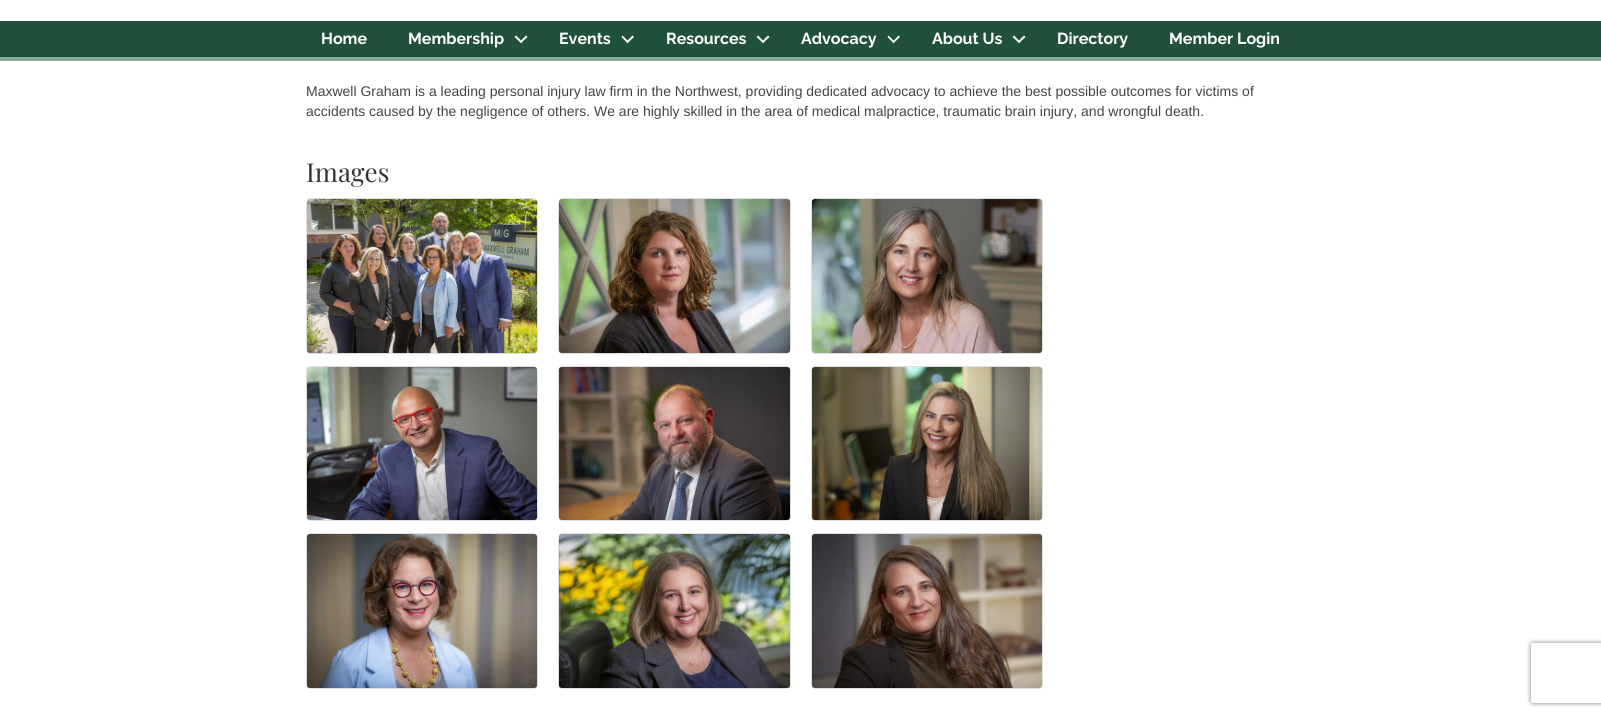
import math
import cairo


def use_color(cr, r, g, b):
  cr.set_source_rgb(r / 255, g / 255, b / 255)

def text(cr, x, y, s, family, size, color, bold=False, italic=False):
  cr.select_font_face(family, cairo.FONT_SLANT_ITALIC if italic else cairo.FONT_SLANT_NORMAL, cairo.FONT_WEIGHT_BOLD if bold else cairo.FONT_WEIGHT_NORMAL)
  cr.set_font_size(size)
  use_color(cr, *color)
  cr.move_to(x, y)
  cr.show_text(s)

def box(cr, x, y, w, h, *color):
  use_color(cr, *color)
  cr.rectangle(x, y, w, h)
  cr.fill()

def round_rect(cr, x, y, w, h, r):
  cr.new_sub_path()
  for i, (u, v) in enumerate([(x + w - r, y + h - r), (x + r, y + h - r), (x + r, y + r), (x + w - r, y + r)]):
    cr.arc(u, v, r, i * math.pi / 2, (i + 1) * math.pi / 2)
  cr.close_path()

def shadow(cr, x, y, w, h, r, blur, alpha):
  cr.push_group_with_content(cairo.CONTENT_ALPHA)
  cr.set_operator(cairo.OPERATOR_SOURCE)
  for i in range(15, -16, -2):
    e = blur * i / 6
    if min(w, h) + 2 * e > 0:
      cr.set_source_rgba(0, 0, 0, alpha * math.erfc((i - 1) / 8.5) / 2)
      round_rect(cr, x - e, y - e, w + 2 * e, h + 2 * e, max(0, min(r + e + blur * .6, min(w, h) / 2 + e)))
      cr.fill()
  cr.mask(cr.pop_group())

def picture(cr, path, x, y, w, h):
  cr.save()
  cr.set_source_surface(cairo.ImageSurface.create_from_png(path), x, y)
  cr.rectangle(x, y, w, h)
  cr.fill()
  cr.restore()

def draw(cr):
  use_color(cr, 255, 255, 255)
  cr.paint()
  box(cr, 0, 21, 1601, 36, 33, 80, 61)
  box(cr, 0, 57, 1601, 4, 142, 167, 155)
  use_color(cr, 255, 255, 255)
  cr.new_path()
  cr.move_to(526, 35.5)
  cr.line_to(527.5, 37)
  cr.line_to(521, 43)
  cr.line_to(519.5, 42)
  cr.close_path()
  cr.fill()
  cr.new_path()
  cr.move_to(516, 35.5)
  cr.line_to(522.5, 42)
  cr.line_to(521, 43)
  cr.line_to(514.5, 37)
  cr.close_path()
  cr.fill()
  cr.new_path()
  cr.move_to(632.5, 35.5)
  cr.line_to(634, 37)
  cr.line_to(627.5, 43)
  cr.line_to(626, 42)
  cr.close_path()
  cr.fill()
  cr.new_path()
  cr.move_to(622.5, 35.5)
  cr.line_to(629, 42)
  cr.line_to(627.5, 43)
  cr.line_to(621.5, 37)
  cr.close_path()
  cr.fill()
  cr.new_path()
  cr.move_to(768, 35.5)
  cr.line_to(769.5, 37)
  cr.line_to(763, 43)
  cr.line_to(761.5, 42)
  cr.close_path()
  cr.fill()
  cr.new_path()
  cr.move_to(758, 35.5)
  cr.line_to(764.5, 42)
  cr.line_to(763, 43)
  cr.line_to(756.5, 37)
  cr.close_path()
  cr.fill()
  cr.new_path()
  cr.move_to(898.5, 35.5)
  cr.line_to(900, 37)
  cr.line_to(893.5, 43)
  cr.line_to(892.5, 42)
  cr.close_path()
  cr.fill()
  cr.new_path()
  cr.move_to(888.5, 35.5)
  cr.line_to(895, 42)
  cr.line_to(893.5, 43)
  cr.line_to(887.5, 37)
  cr.close_path()
  cr.fill()
  cr.new_path()
  cr.move_to(1024, 35.5)
  cr.line_to(1025.5, 37)
  cr.line_to(1019, 43)
  cr.line_to(1017.5, 42)
  cr.close_path()
  cr.fill()
  cr.new_path()
  cr.move_to(1014, 35.5)
  cr.line_to(1020.5, 42)
  cr.line_to(1019, 43)
  cr.line_to(1012.5, 37)
  cr.close_path()
  cr.fill()
  round_rect(cr, 306.5, 198.5, 231, 155, 4.5)
  use_color(cr, 223, 223, 223)
  cr.set_line_width(1)
  cr.stroke()
  picture(cr, "img_01.png", 307, 199, 230, 154)
  round_rect(cr, 558.5, 198.5, 232, 155, 4.5)
  cr.stroke()
  picture(cr, "img_02.png", 559, 199, 231, 154)
  round_rect(cr, 811.5, 198.5, 231, 155, 4.5)
  cr.stroke()
  picture(cr, "img_03.png", 812, 199, 230, 154)
  round_rect(cr, 306.5, 366.5, 231, 154, 4.5)
  cr.stroke()
  picture(cr, "img_04.png", 307, 367, 230, 153)
  round_rect(cr, 558.5, 366.5, 232, 154, 4.5)
  cr.stroke()
  picture(cr, "img_05.png", 559, 367, 231, 153)
  round_rect(cr, 811.5, 366.5, 231, 154, 4.5)
  cr.stroke()
  picture(cr, "img_06.png", 812, 367, 230, 153)
  round_rect(cr, 306.5, 533.5, 231, 155, 4.5)
  cr.stroke()
  picture(cr, "img_07.png", 307, 534, 230, 154)
  round_rect(cr, 558.5, 533.5, 232, 155, 4.5)
  cr.stroke()
  picture(cr, "img_08.png", 559, 534, 231, 154)
  round_rect(cr, 811.5, 533.5, 231, 155, 4.5)
  cr.stroke()
  picture(cr, "img_09.png", 812, 534, 230, 154)
  cr.save()
  cr.set_fill_rule(cairo.FILL_RULE_EVEN_ODD)
  cr.new_path()
  cr.move_to(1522, 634)
  cr.line_to(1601, 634)
  cr.line_to(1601, 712)
  cr.line_to(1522, 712)
  cr.close_path()
  cr.move_to(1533, 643)
  cr.line_to(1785, 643)
  cr.curve_to(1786, 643, 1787, 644, 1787, 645)
  cr.line_to(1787, 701)
  cr.curve_to(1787, 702, 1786, 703, 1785, 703)
  cr.line_to(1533, 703)
  cr.curve_to(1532, 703, 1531, 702, 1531, 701)
  cr.line_to(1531, 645)
  cr.curve_to(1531, 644, 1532, 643, 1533, 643)
  cr.close_path()
  cr.clip()
  use_color(cr, 128, 128, 128)
  shadow(cr, 1531, 643, 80, 60, 2, 2.5, 1)
  cr.restore()
  text(cr, 321, 44, "Home", "Raleway Thin", 16, (255, 255, 255))
  text(cr, 408, 44, "Membership", "Raleway Thin", 16, (255, 255, 255))
  text(cr, 559, 44, "Events", "Raleway Thin", 16, (255, 255, 255))
  text(cr, 666, 44, "Resources", "Raleway Thin", 16, (255, 255, 255))
  text(cr, 801, 44, "Advocacy", "Raleway Thin", 16, (255, 255, 255))
  text(cr, 932, 44, "About Us", "Raleway Thin", 16, (255, 255, 255))
  text(cr, 1057, 44, "Directory", "Raleway Thin", 16, (255, 255, 255))
  text(cr, 1169, 44, "Member Login", "Raleway Thin", 16, (255, 255, 255))
  text(cr, 306, 96, "Maxwell Graham is a leading personal injury law firm in the Northwest, providing dedicated advocacy to achieve the best possible outcomes for victims of", "Liberation Sans", 14, (68, 68, 68))
  text(cr, 306, 116, "accidents caused by the negligence of others. We are highly skilled in the area of medical malpractice, traumatic brain injury, and wrongful death.", "Liberation Sans", 14, (68, 68, 68))
  text(cr, 306, 182, "Images", "Playfair Display", 26, (51, 51, 51))


surface = cairo.ImageSurface(cairo.FORMAT_RGB24, 1601, 717)
cr = cairo.Context(surface)
options = cairo.FontOptions()
options.set_hint_metrics(cairo.HINT_METRICS_OFF)
options.set_hint_style(cairo.HINT_STYLE_NONE)
cr.set_font_options(options)
cr.set_miter_limit(4)
draw(cr)
surface.write_to_png("out.png")
